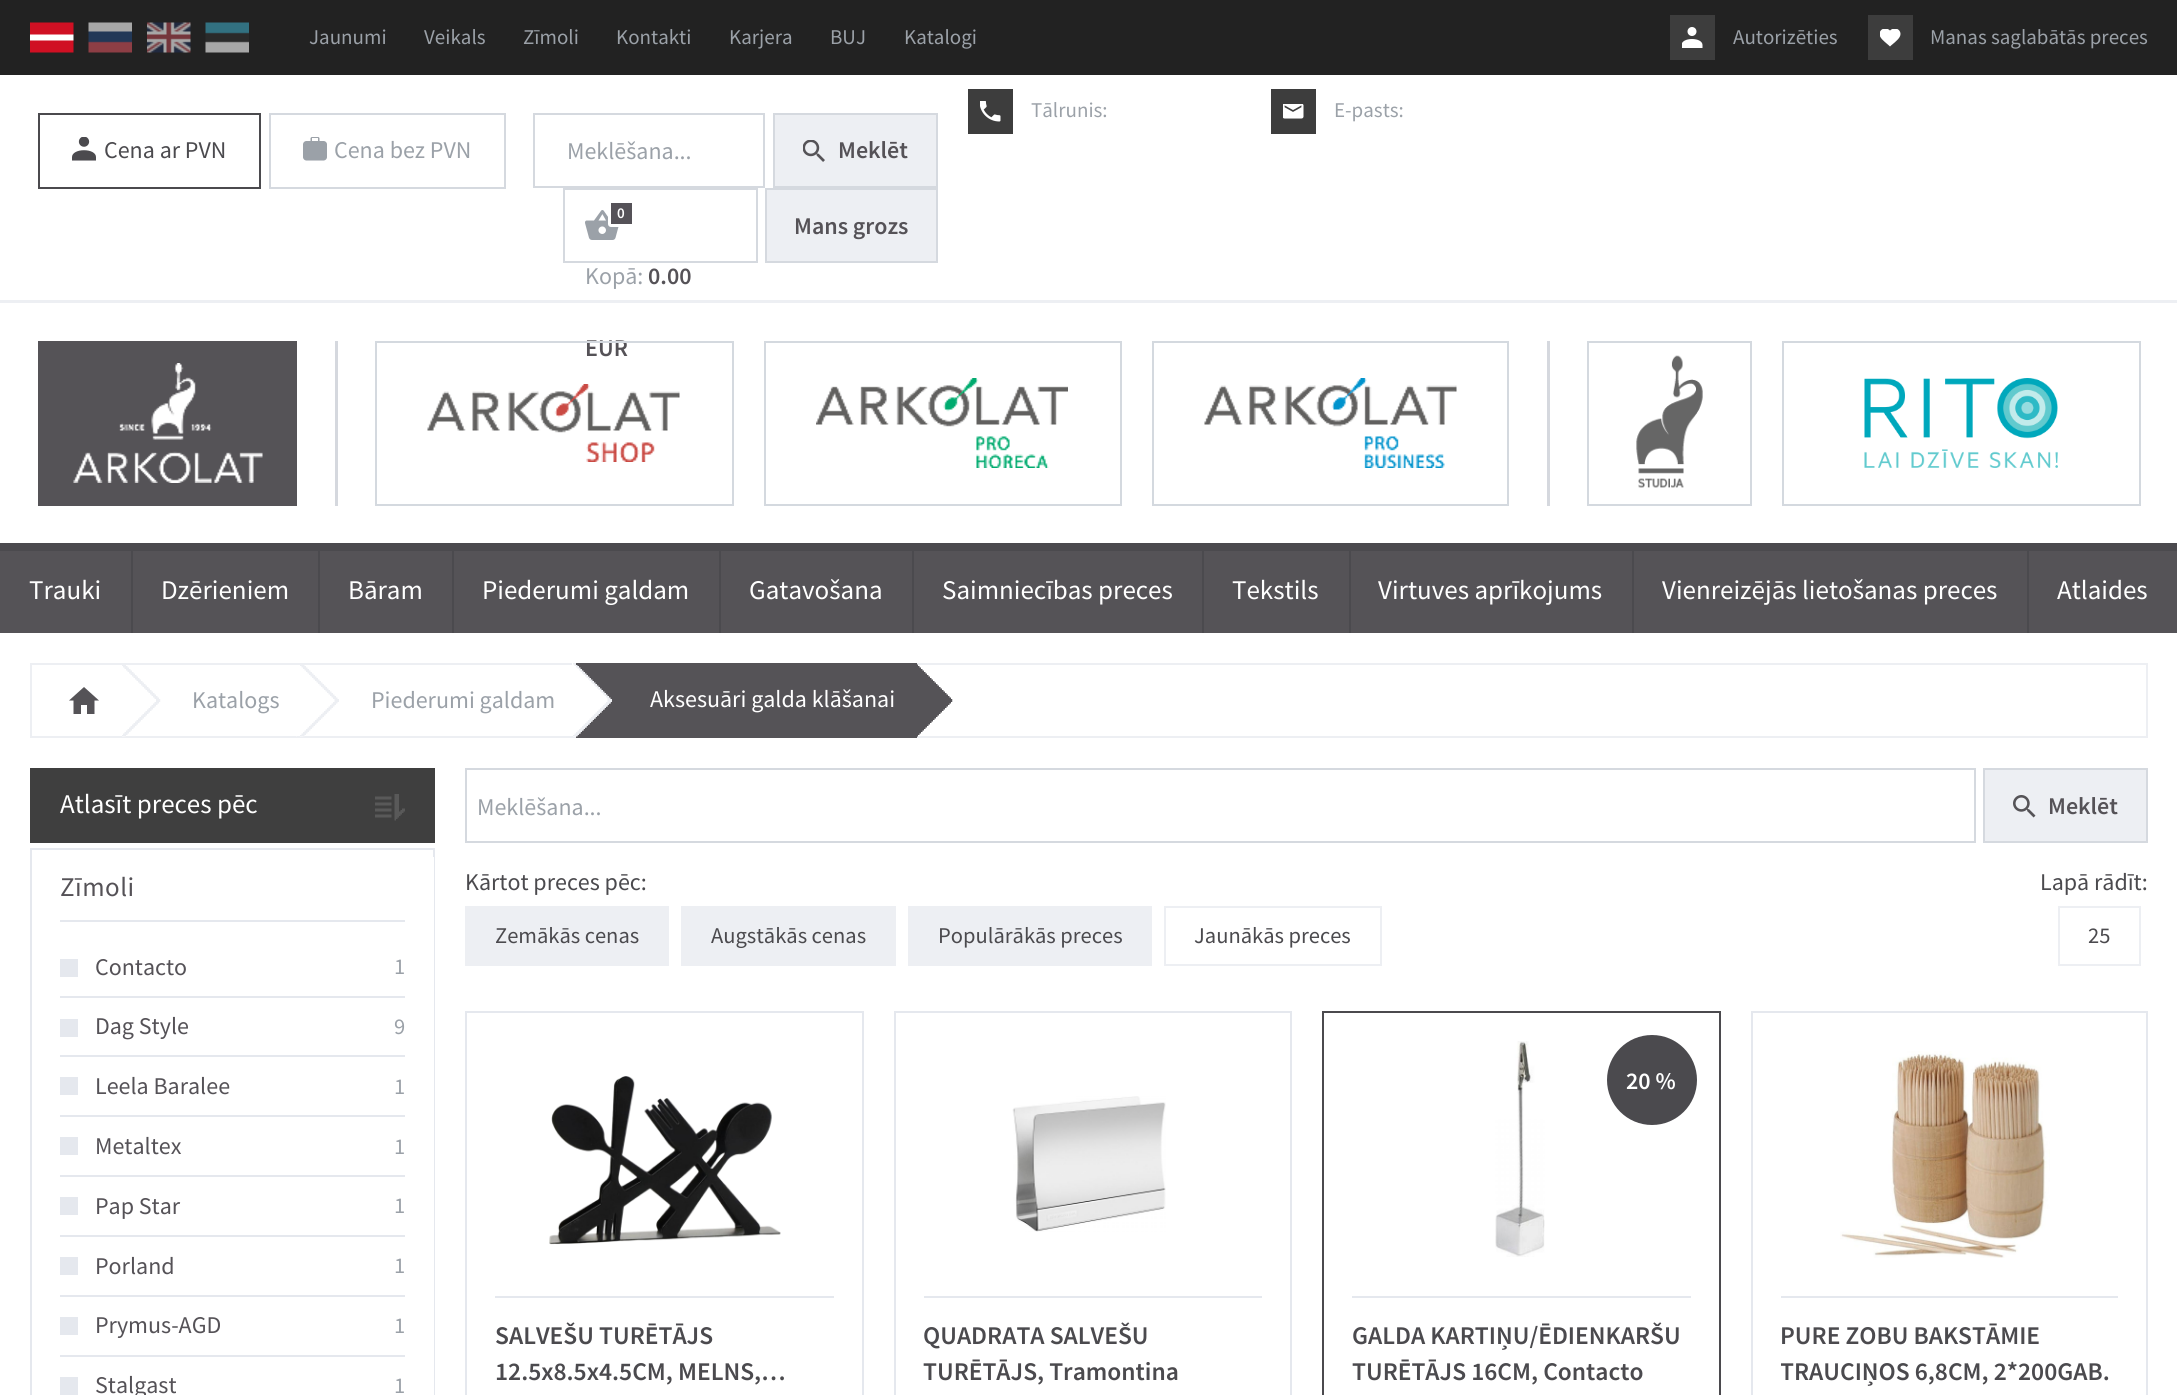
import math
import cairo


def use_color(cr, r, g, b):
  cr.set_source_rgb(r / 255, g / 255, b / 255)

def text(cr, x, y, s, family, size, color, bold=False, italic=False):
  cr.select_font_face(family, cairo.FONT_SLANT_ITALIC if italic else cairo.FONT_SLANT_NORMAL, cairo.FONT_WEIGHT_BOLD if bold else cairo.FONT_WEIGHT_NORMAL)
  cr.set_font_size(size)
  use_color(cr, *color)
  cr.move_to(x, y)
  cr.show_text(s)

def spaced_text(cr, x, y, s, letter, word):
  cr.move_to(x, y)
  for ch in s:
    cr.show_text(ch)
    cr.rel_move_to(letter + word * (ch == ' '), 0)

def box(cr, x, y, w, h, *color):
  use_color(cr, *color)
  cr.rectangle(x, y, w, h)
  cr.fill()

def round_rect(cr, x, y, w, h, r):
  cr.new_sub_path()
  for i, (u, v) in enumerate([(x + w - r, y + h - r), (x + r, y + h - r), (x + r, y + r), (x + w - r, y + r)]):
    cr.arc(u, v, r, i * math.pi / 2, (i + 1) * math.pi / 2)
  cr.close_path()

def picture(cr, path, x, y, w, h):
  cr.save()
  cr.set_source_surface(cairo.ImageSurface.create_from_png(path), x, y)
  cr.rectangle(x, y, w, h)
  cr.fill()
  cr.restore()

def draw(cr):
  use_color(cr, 34, 34, 34)
  cr.paint()
  picture(cr, "img_01.png", 30, 22, 44, 31)
  picture(cr, "img_02.png", 88, 22, 44, 31)
  picture(cr, "img_03.png", 147, 22, 44, 31)
  picture(cr, "img_04.png", 205, 22, 44, 31)
  box(cr, 1670, 15, 45, 45, 61, 61, 61)
  picture(cr, "img_05.png", 1682, 27, 21, 21)
  box(cr, 1868, 15, 45, 45, 61, 61, 61)
  picture(cr, "img_06.png", 1880, 29, 21, 18)
  box(cr, 0, 75, 2177, 225, 255, 255, 255)
  box(cr, 968, 89, 45, 45, 61, 61, 61)
  picture(cr, "img_07.png", 980, 101, 21, 21)
  box(cr, 1271, 89, 45, 45, 61, 61, 61)
  picture(cr, "img_08.png", 1283, 104, 21, 15)
  box(cr, 0, 300, 2177, 3, 237, 239, 243)
  cr.rectangle(39, 114, 221, 74)
  use_color(cr, 75, 74, 78)
  cr.stroke()
  picture(cr, "img_09.png", 72, 137, 24, 24)
  cr.rectangle(270, 114, 235, 74)
  use_color(cr, 213, 217, 223)
  cr.stroke()
  picture(cr, "img_10.png", 303, 137, 24, 24)
  cr.rectangle(534, 114, 230, 73)
  cr.stroke()
  use_color(cr, 237, 239, 243)
  cr.rectangle(774, 114, 163, 73)
  cr.fill_preserve()
  use_color(cr, 213, 217, 223)
  cr.stroke()
  picture(cr, "img_11.png", 803, 140, 22, 22)
  cr.rectangle(564, 189, 193, 73)
  cr.stroke()
  picture(cr, "img_12.png", 585, 210, 34, 30)
  use_color(cr, 85, 82, 88)
  round_rect(cr, 609.5, 201.5, 24, 24, 1.5)
  cr.fill_preserve()
  use_color(cr, 255, 255, 255)
  cr.set_line_width(3)
  cr.stroke()
  use_color(cr, 237, 239, 243)
  cr.rectangle(766, 189, 171, 73)
  cr.fill_preserve()
  use_color(cr, 213, 217, 223)
  cr.set_line_width(2)
  cr.stroke()
  box(cr, 0, 303, 2177, 240, 255, 255, 255)
  box(cr, 335, 341, 3, 165, 213, 216, 222)
  box(cr, 38, 341, 259, 165, 85, 83, 87)
  picture(cr, "img_13.png", 73, 363, 190, 120)
  cr.rectangle(765, 342, 356, 163)
  use_color(cr, 212, 217, 223)
  cr.stroke()
  picture(cr, "img_15.png", 816, 378, 252, 90)
  box(cr, 1547, 341, 3, 165, 213, 216, 222)
  cr.rectangle(1153, 342, 355, 163)
  use_color(cr, 212, 217, 223)
  cr.stroke()
  picture(cr, "img_16.png", 1204, 378, 253, 90)
  cr.rectangle(1588, 342, 163, 163)
  cr.stroke()
  picture(cr, "img_17.png", 1636, 355, 67, 133)
  cr.rectangle(1783, 342, 357, 163)
  cr.stroke()
  picture(cr, "img_18.png", 1864, 378, 194, 90)
  box(cr, 0, 551, 2177, 82, 85, 83, 87)
  box(cr, 0, 543, 2177, 8, 75, 74, 78)
  box(cr, 131, 551, 2, 82, 75, 74, 78)
  box(cr, 318, 551, 2, 82, 75, 74, 78)
  box(cr, 452, 551, 2, 82, 75, 74, 78)
  box(cr, 719, 551, 2, 82, 75, 74, 78)
  box(cr, 912, 551, 2, 82, 75, 74, 78)
  box(cr, 1202, 551, 2, 82, 75, 74, 78)
  box(cr, 1349, 551, 2, 82, 75, 74, 78)
  box(cr, 1632, 551, 2, 82, 75, 74, 78)
  box(cr, 2027, 551, 2, 82, 75, 74, 78)
  box(cr, 0, 633, 2177, 762, 255, 255, 255)
  cr.rectangle(31, 664, 2116, 73)
  use_color(cr, 237, 239, 243)
  cr.stroke()
  picture(cr, "img_19.png", 69, 687, 30, 27)
  picture(cr, "img_20.png", 122, 665, 39, 72)
  picture(cr, "img_21.png", 300, 665, 39, 72)
  box(cr, 296, 736, 1, 1, 242, 243, 246)
  box(cr, 576, 663, 341, 75, 85, 83, 87)
  picture(cr, "img_23.png", 573, 665, 39, 72)
  picture(cr, "img_22.png", 572, 663, 36, 36)
  picture(cr, "img_24.png", 917, 664, 36, 73)
  box(cr, 30, 768, 405, 75, 63, 63, 63)
  picture(cr, "img_25.png", 375, 794, 30, 27)
  cr.rectangle(31, 849, 403, 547)
  use_color(cr, 229, 232, 238)
  cr.stroke()
  box(cr, 433, 857, 1, 538, 255, 255, 255)
  box(cr, 60, 920, 345, 2, 229, 232, 238)
  box(cr, 60, 996, 345, 2, 229, 232, 238)
  box(cr, 60, 959, 18, 18, 229, 232, 238)
  box(cr, 60, 1055, 345, 2, 229, 232, 238)
  box(cr, 60, 1019, 18, 18, 229, 232, 238)
  box(cr, 60, 1115, 345, 2, 229, 232, 238)
  box(cr, 60, 1077, 18, 18, 229, 232, 238)
  box(cr, 60, 1175, 345, 2, 229, 232, 238)
  box(cr, 60, 1137, 18, 18, 229, 232, 238)
  box(cr, 60, 1235, 345, 2, 229, 232, 238)
  box(cr, 60, 1197, 18, 18, 229, 232, 238)
  box(cr, 60, 1295, 345, 2, 229, 232, 238)
  box(cr, 60, 1257, 18, 18, 229, 232, 238)
  box(cr, 60, 1355, 345, 2, 229, 232, 238)
  box(cr, 60, 1317, 18, 18, 229, 232, 238)
  box(cr, 60, 1377, 18, 18, 229, 232, 238)
  cr.rectangle(466, 769, 1509, 73)
  use_color(cr, 213, 217, 223)
  cr.stroke()
  use_color(cr, 237, 239, 243)
  cr.rectangle(1984, 769, 163, 73)
  cr.fill_preserve()
  use_color(cr, 213, 217, 223)
  cr.stroke()
  picture(cr, "img_26.png", 2013, 795, 23, 23)
  box(cr, 465, 906, 204, 60, 237, 239, 243)
  box(cr, 681, 906, 215, 60, 237, 239, 243)
  box(cr, 908, 906, 244, 60, 237, 239, 243)
  cr.rectangle(1165, 907, 216, 58)
  cr.stroke()
  cr.rectangle(2059, 907, 81, 58)
  cr.stroke()
  cr.rectangle(466, 1012, 397, 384)
  use_color(cr, 229, 232, 238)
  cr.stroke()
  picture(cr, "img_27.png", 549, 1076, 232, 169)
  box(cr, 495, 1296, 339, 2, 229, 232, 238)
  cr.rectangle(895, 1012, 396, 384)
  cr.stroke()
  picture(cr, "img_28.png", 1012, 1096, 154, 136)
  box(cr, 924, 1296, 338, 2, 229, 232, 238)
  cr.rectangle(1323, 1012, 397, 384)
  use_color(cr, 75, 74, 78)
  cr.stroke()
  picture(cr, "img_29.png", 1495, 1041, 50, 216)
  cr.arc(1652, 1080, 41, 0, 2 * math.pi)
  cr.fill_preserve()
  cr.set_line_width(8)
  cr.stroke()
  box(cr, 1352, 1296, 339, 2, 229, 232, 238)
  cr.rectangle(1752, 1012, 395, 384)
  cr.set_line_width(2)
  cr.stroke()
  picture(cr, "img_30.png", 1840, 1051, 210, 207)
  box(cr, 1781, 1296, 337, 2, 229, 232, 238)
  text(cr, 309, 44, "Jaunumi", "Source Sans Pro", 21, (155, 161, 168))
  text(cr, 424, 44, "Veikals", "Source Sans Pro", 21, (155, 161, 168))
  text(cr, 523, 44, "Zīmoli", "Source Sans Pro", 21, (155, 161, 168))
  text(cr, 616, 44, "Kontakti", "Source Sans Pro", 21, (155, 161, 168))
  text(cr, 729, 44, "Karjera", "Source Sans Pro", 21, (155, 161, 168))
  text(cr, 830, 44, "BUJ", "Source Sans Pro", 21, (155, 161, 168))
  text(cr, 904, 44, "Katalogi", "Source Sans Pro", 21, (155, 161, 168))
  text(cr, 1733, 44, "Autorizēties", "Source Sans Pro", 21, (155, 161, 168))
  text(cr, 1930, 44, "Manas saglabātās preces", "Source Sans Pro", 21, (155, 161, 168))
  text(cr, 1031, 117, "Tālrunis:", "Source Sans Pro", 21, (155, 161, 168))
  text(cr, 1334, 117, "E-pasts:", "Source Sans Pro", 21, (155, 161, 168))
  text(cr, 104, 158, "Cena ar PVN", "Source Sans Pro", 24, (75, 74, 78))
  text(cr, 334, 158, "Cena bez PVN", "Source Sans Pro", 24, (155, 161, 168))
  text(cr, 567, 159, "Meklēšana...", "Source Sans Pro", 24, (155, 161, 168))
  text(cr, 838, 158, "Meklēt", "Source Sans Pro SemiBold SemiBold", 24, (85, 82, 87))
  text(cr, 617, 218, "0", "Source Sans Pro SemiBold SemiBold", 15, (255, 255, 255))
  text(cr, 585, 284, "Kopā:", "Source Sans Pro", 24, (155, 161, 168))
  text(cr, 648, 284, "0.00", "Source Sans Pro SemiBold SemiBold", 24, (85, 82, 87))
  text(cr, 585, 356, "EUR", "Source Sans Pro SemiBold SemiBold", 24, (85, 82, 87))
  text(cr, 794, 234, "Mans grozs", "Source Sans Pro SemiBold SemiBold", 24, (85, 82, 87))
  cr.rectangle(376, 342, 357, 163)
  use_color(cr, 212, 217, 223)
  cr.stroke()
  picture(cr, "img_14.png", 427, 384, 253, 78)
  text(cr, 29, 599, "Trauki", "Source Sans Pro", 27, (255, 255, 255))
  text(cr, 161, 599, "Dzērieniem", "Source Sans Pro", 27, (255, 255, 255))
  text(cr, 348, 599, "Bāram", "Source Sans Pro", 27, (255, 255, 255))
  text(cr, 482, 599, "Piederumi galdam", "Source Sans Pro", 27, (255, 255, 255))
  text(cr, 749, 599, "Gatavošana", "Source Sans Pro", 27, (255, 255, 255))
  text(cr, 942, 599, "Saimniecības preces", "Source Sans Pro", 27, (255, 255, 255))
  text(cr, 1232, 599, "Tekstils", "Source Sans Pro", 27, (255, 255, 255))
  text(cr, 1378, 599, "Virtuves aprīkojums", "Source Sans Pro", 27, (255, 255, 255))
  text(cr, 1662, 599, "Vienreizējās lietošanas preces", "Source Sans Pro", 27, (255, 255, 255))
  text(cr, 2057, 599, "Atlaides", "Source Sans Pro", 27, (255, 255, 255))
  text(cr, 192, 708, "Katalogs", "Source Sans Pro", 24, (155, 161, 168))
  text(cr, 371, 708, "Piederumi galdam", "Source Sans Pro", 24, (155, 161, 168))
  text(cr, 650, 707, "Aksesuāri galda klāšanai", "Source Sans Pro", 24, (255, 255, 255))
  text(cr, 60, 813, "Atlasīt preces pēc", "Source Sans Pro", 27, (255, 255, 255))
  use_color(cr, 85, 82, 87)
  spaced_text(cr, 60, 896, "Zīmoli", 0.5, 0)
  text(cr, 95, 975, "Contacto", "Source Sans Pro", 24, (85, 82, 87))
  text(cr, 394, 974, "1", "Source Sans Pro", 22.5, (155, 161, 168))
  text(cr, 95, 1034, "Dag Style", "Source Sans Pro", 24, (85, 82, 87))
  text(cr, 394, 1034, "9", "Source Sans Pro", 22.5, (155, 161, 168))
  text(cr, 95, 1094, "Leela Baralee", "Source Sans Pro", 24, (85, 82, 87))
  text(cr, 394, 1094, "1", "Source Sans Pro", 22.5, (155, 161, 168))
  text(cr, 95, 1154, "Metaltex", "Source Sans Pro", 24, (85, 82, 87))
  text(cr, 394, 1154, "1", "Source Sans Pro", 22.5, (155, 161, 168))
  text(cr, 95, 1214, "Pap Star", "Source Sans Pro", 24, (85, 82, 87))
  text(cr, 394, 1213, "1", "Source Sans Pro", 22.5, (155, 161, 168))
  text(cr, 95, 1274, "Porland", "Source Sans Pro", 24, (85, 82, 87))
  text(cr, 394, 1273, "1", "Source Sans Pro", 22.5, (155, 161, 168))
  text(cr, 95, 1333, "Prymus-AGD", "Source Sans Pro", 24, (85, 82, 87))
  text(cr, 394, 1333, "1", "Source Sans Pro", 22.5, (155, 161, 168))
  text(cr, 95, 1393, "Stalgast", "Source Sans Pro", 24, (85, 82, 87))
  text(cr, 394, 1393, "1", "Source Sans Pro", 22.5, (155, 161, 168))
  text(cr, 477, 815, "Meklēšana...", "Source Sans Pro", 24, (155, 161, 168))
  text(cr, 2048, 814, "Meklēt", "Source Sans Pro SemiBold SemiBold", 24, (85, 82, 87))
  text(cr, 465, 890, "Kārtot preces pēc:", "Source Sans Pro", 24, (75, 74, 78))
  text(cr, 495, 943, "Zemākās cenas", "Source Sans Pro", 22.5, (75, 74, 78))
  text(cr, 711, 943, "Augstākās cenas", "Source Sans Pro", 22.5, (75, 74, 78))
  text(cr, 938, 943, "Populārākās preces", "Source Sans Pro", 22.5, (75, 74, 78))
  text(cr, 1194, 943, "Jaunākās preces", "Source Sans Pro", 22.5, (75, 74, 78))
  text(cr, 2040, 890, "Lapā rādīt:", "Source Sans Pro", 24, (75, 74, 78))
  text(cr, 2088, 943, "25", "Source Sans Pro", 22.5, (75, 74, 78))
  text(cr, 495, 1344, "SALVEŠU TURĒTĀJS", "Source Sans Pro SemiBold SemiBold", 25.5, (75, 74, 78))
  text(cr, 495, 1380, "12.5x8.5x4.5CM, MELNS,…", "Source Sans Pro SemiBold SemiBold", 25.5, (75, 74, 78))
  text(cr, 923, 1344, "QUADRATA SALVEŠU", "Source Sans Pro SemiBold SemiBold", 25.5, (75, 74, 78))
  text(cr, 923, 1380, "TURĒTĀJS, Tramontina", "Source Sans Pro SemiBold SemiBold", 25.5, (75, 74, 78))
  text(cr, 1626, 1089, "20 %", "Source Sans Pro SemiBold SemiBold", 24, (255, 255, 255))
  text(cr, 1352, 1344, "GALDA KARTIŅU/ĒDIENKARŠU", "Source Sans Pro SemiBold SemiBold", 25.5, (75, 74, 78))
  text(cr, 1352, 1380, "TURĒTĀJS 16CM, Contacto", "Source Sans Pro SemiBold SemiBold", 25.5, (75, 74, 78))
  text(cr, 1780, 1344, "PURE ZOBU BAKSTĀMIE", "Source Sans Pro SemiBold SemiBold", 25.5, (75, 74, 78))
  cr.save()
  cr.rectangle(1781, 1317, 337, 71)
  cr.clip()
  text(cr, 1780, 1380, "TRAUCIŅOS 6,8CM, 2*200GAB.", "Source Sans Pro SemiBold SemiBold", 25.5, (75, 74, 78))
  cr.restore()


surface = cairo.ImageSurface(cairo.FORMAT_RGB24, 2177, 1395)
cr = cairo.Context(surface)
options = cairo.FontOptions()
options.set_hint_metrics(cairo.HINT_METRICS_OFF)
options.set_hint_style(cairo.HINT_STYLE_NONE)
cr.set_font_options(options)
cr.set_miter_limit(4)
draw(cr)
surface.write_to_png("out.png")
